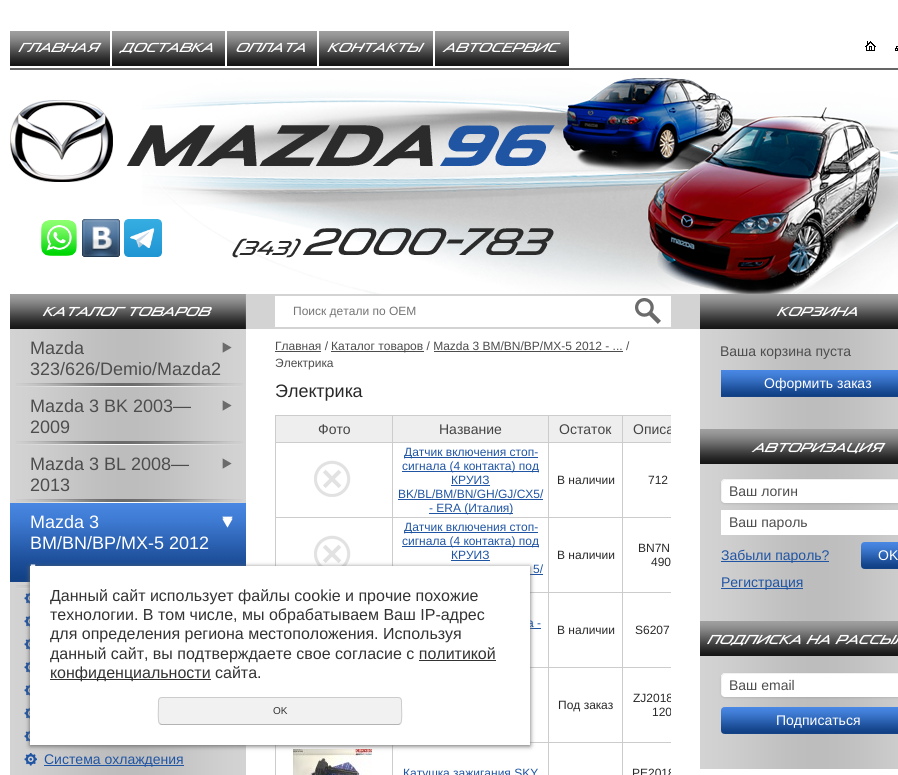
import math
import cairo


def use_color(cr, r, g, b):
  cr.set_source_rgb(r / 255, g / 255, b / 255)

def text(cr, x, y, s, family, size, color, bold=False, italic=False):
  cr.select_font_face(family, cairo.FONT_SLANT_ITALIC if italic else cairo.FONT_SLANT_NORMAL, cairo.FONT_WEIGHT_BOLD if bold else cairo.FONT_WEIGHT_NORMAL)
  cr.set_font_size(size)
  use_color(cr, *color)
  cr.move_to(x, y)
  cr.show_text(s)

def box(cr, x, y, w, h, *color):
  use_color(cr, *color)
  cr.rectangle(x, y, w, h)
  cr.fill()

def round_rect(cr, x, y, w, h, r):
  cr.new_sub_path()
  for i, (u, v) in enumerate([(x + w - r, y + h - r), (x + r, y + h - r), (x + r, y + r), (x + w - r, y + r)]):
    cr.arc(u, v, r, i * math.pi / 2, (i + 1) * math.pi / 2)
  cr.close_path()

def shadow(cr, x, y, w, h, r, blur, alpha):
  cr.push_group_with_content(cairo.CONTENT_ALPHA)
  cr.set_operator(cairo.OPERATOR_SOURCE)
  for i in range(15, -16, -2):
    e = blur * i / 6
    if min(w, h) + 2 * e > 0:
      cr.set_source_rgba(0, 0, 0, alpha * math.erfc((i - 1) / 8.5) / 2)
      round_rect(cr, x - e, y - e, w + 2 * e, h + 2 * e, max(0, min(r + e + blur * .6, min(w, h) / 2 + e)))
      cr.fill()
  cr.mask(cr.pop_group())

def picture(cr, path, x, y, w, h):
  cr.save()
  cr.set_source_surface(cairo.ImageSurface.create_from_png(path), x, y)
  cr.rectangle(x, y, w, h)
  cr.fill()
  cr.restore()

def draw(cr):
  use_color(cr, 255, 255, 255)
  cr.paint()
  box(cr, 10, 68, 888, 2, 103, 102, 102)
  box(cr, 10, 64, 100, 2, 22, 22, 22)
  picture(cr, "img_01.png", 10, 31, 100, 33)
  box(cr, 112, 64, 113, 2, 22, 22, 22)
  picture(cr, "img_02.png", 112, 31, 113, 33)
  box(cr, 227, 64, 90, 2, 22, 22, 22)
  picture(cr, "img_03.png", 227, 31, 90, 33)
  box(cr, 319, 64, 114, 2, 22, 22, 22)
  picture(cr, "img_04.png", 319, 31, 114, 33)
  box(cr, 435, 64, 134, 2, 22, 22, 22)
  picture(cr, "img_05.png", 435, 31, 134, 33)
  picture(cr, "img_06.png", 865, 41, 11, 10)
  picture(cr, "img_07.png", 895, 46, 3, 5)
  picture(cr, "img_08.png", 142, 78, 756, 216)
  picture(cr, "img_09.png", 10, 100, 545, 82)
  picture(cr, "img_10.png", 232, 228, 322, 30)
  picture(cr, "img_11.png", 41, 220, 36, 36)
  picture(cr, "img_12.png", 82, 219, 38, 38)
  picture(cr, "img_13.png", 124, 219, 38, 38)
  box(cr, 245, 294, 455, 35, 211, 211, 211)
  picture(cr, "img_14.png", 10, 294, 236, 35)
  box(cr, 275, 296, 396, 31, 255, 255, 255)
  picture(cr, "img_15.png", 635, 298, 26, 26)
  picture(cr, "img_16.png", 700, 294, 198, 35)
  picture(cr, "img_17.png", 10, 329, 236, 446)
  picture(cr, "img_18.png", 16, 383, 227, 4)
  picture(cr, "img_19.png", 222, 342, 10, 11)
  picture(cr, "img_18.png", 16, 441, 227, 4)
  picture(cr, "img_19.png", 222, 400, 10, 11)
  picture(cr, "img_18.png", 16, 499, 227, 4)
  picture(cr, "img_19.png", 222, 458, 10, 11)
  picture(cr, "img_20.png", 10, 503, 236, 79)
  picture(cr, "img_21.png", 16, 585, 14, 4)
  picture(cr, "img_22.png", 24, 592, 6, 13)
  picture(cr, "img_22.png", 24, 615, 6, 13)
  picture(cr, "img_22.png", 24, 638, 6, 13)
  picture(cr, "img_22.png", 24, 661, 6, 13)
  picture(cr, "img_22.png", 24, 684, 6, 13)
  picture(cr, "img_22.png", 24, 707, 6, 13)
  picture(cr, "img_22.png", 24, 730, 6, 13)
  picture(cr, "img_23.png", 24, 753, 13, 13)
  box(cr, 44, 765, 140, 1, 32, 85, 163)
  box(cr, 275, 351, 46, 1, 77, 77, 77)
  box(cr, 331, 351, 93, 1, 77, 77, 77)
  box(cr, 434, 351, 189, 1, 77, 77, 77)
  box(cr, 275, 415, 396, 1, 204, 204, 204)
  box(cr, 275, 415, 1, 360, 204, 204, 204)
  box(cr, 276, 416, 116, 26, 238, 238, 238)
  box(cr, 622, 742, 1, 33, 204, 204, 204)
  box(cr, 622, 742, 49, 1, 204, 204, 204)
  box(cr, 622, 667, 1, 76, 204, 204, 204)
  box(cr, 622, 667, 49, 1, 204, 204, 204)
  box(cr, 622, 592, 1, 76, 204, 204, 204)
  box(cr, 622, 592, 49, 1, 204, 204, 204)
  box(cr, 622, 517, 1, 76, 204, 204, 204)
  box(cr, 622, 517, 49, 1, 204, 204, 204)
  box(cr, 622, 442, 1, 76, 204, 204, 204)
  box(cr, 622, 442, 49, 1, 204, 204, 204)
  box(cr, 622, 415, 1, 28, 204, 204, 204)
  box(cr, 548, 742, 1, 33, 204, 204, 204)
  box(cr, 548, 742, 75, 1, 204, 204, 204)
  box(cr, 548, 667, 1, 76, 204, 204, 204)
  box(cr, 548, 667, 75, 1, 204, 204, 204)
  box(cr, 548, 592, 1, 76, 204, 204, 204)
  box(cr, 548, 592, 75, 1, 204, 204, 204)
  box(cr, 548, 517, 1, 76, 204, 204, 204)
  box(cr, 548, 517, 75, 1, 204, 204, 204)
  box(cr, 548, 442, 1, 76, 204, 204, 204)
  box(cr, 548, 442, 75, 1, 204, 204, 204)
  box(cr, 548, 415, 1, 28, 204, 204, 204)
  box(cr, 392, 517, 1, 49, 204, 204, 204)
  box(cr, 392, 517, 157, 1, 204, 204, 204)
  box(cr, 392, 442, 1, 76, 204, 204, 204)
  box(cr, 392, 442, 157, 1, 204, 204, 204)
  box(cr, 392, 415, 1, 28, 204, 204, 204)
  box(cr, 275, 442, 118, 1, 204, 204, 204)
  box(cr, 393, 416, 155, 26, 238, 238, 238)
  box(cr, 549, 416, 73, 26, 238, 238, 238)
  box(cr, 623, 416, 48, 26, 238, 238, 238)
  box(cr, 275, 517, 118, 1, 204, 204, 204)
  picture(cr, "img_24.png", 314, 460, 37, 37)
  box(cr, 404, 457, 134, 1, 32, 85, 163)
  box(cr, 402, 471, 137, 1, 32, 85, 163)
  box(cr, 451, 485, 39, 1, 32, 85, 163)
  box(cr, 398, 499, 145, 1, 32, 85, 163)
  box(cr, 429, 513, 84, 1, 32, 85, 163)
  picture(cr, "img_25.png", 314, 535, 37, 31)
  box(cr, 530, 592, 19, 1, 204, 204, 204)
  box(cr, 404, 532, 134, 1, 32, 85, 163)
  box(cr, 402, 546, 137, 1, 32, 85, 163)
  box(cr, 451, 560, 39, 1, 32, 85, 163)
  box(cr, 530, 574, 13, 1, 32, 85, 163)
  box(cr, 530, 667, 19, 1, 204, 204, 204)
  box(cr, 530, 628, 11, 1, 32, 85, 163)
  box(cr, 530, 742, 19, 1, 204, 204, 204)
  box(cr, 392, 742, 1, 33, 204, 204, 204)
  picture(cr, "img_26.png", 293, 749, 79, 26)
  picture(cr, "img_27.png", 700, 329, 198, 440)
  picture(cr, "img_28.png", 721, 370, 177, 27)
  picture(cr, "img_29.png", 700, 429, 198, 35)
  use_color(cr, 0, 0, 0)
  shadow(cr, 721, 480, 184, 24, 4, 1, 0.1)
  use_color(cr, 255, 255, 255)
  round_rect(cr, 721, 479, 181, 24, 4)
  cr.fill()
  use_color(cr, 241, 241, 241)
  cr.new_path()
  cr.move_to(726, 480)
  cr.line_to(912, 480)
  cr.line_to(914, 481)
  cr.curve_to(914, 480, 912, 479, 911, 479)
  cr.line_to(725, 479)
  cr.curve_to(723, 479, 721, 481, 721, 483)
  cr.line_to(721, 499)
  cr.curve_to(721, 500, 722, 502, 723, 502)
  cr.curve_to(721, 500, 722, 495, 722, 492)
  cr.curve_to(722, 489, 720, 480, 726, 480)
  cr.close_path()
  cr.fill()
  box(cr, 721, 510, 177, 25, 255, 255, 255)
  picture(cr, "img_30.png", 861, 542, 37, 27)
  box(cr, 721, 561, 108, 1, 32, 85, 163)
  box(cr, 721, 588, 82, 1, 32, 85, 163)
  picture(cr, "img_31.png", 700, 621, 198, 35)
  use_color(cr, 0, 0, 0)
  shadow(cr, 721, 674, 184, 24, 4, 1, 0.1)
  use_color(cr, 255, 255, 255)
  round_rect(cr, 721, 673, 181, 24, 4)
  cr.fill()
  use_color(cr, 241, 241, 241)
  cr.new_path()
  cr.move_to(726, 674)
  cr.line_to(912, 674)
  cr.line_to(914, 675)
  cr.curve_to(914, 674, 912, 673, 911, 673)
  cr.line_to(725, 673)
  cr.curve_to(723, 673, 721, 675, 721, 677)
  cr.line_to(721, 693)
  cr.curve_to(721, 694, 722, 696, 723, 696)
  cr.curve_to(721, 694, 722, 689, 722, 686)
  cr.curve_to(722, 683, 720, 674, 726, 674)
  cr.close_path()
  cr.fill()
  picture(cr, "img_32.png", 721, 707, 177, 27)
  use_color(cr, 102, 102, 102)
  shadow(cr, 30, 567, 500, 179, 0, 2.5, 1)
  text(cr, 20, 52, "Главная", "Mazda", 13, (255, 255, 255))
  text(cr, 122, 52, "Доставка", "Mazda", 13, (255, 255, 255))
  text(cr, 237, 52, "Оплата", "Mazda", 13, (255, 255, 255))
  text(cr, 329, 52, "Контакты", "Mazda", 13, (255, 255, 255))
  text(cr, 445, 52, "Автосервис", "Mazda", 13, (255, 255, 255))
  text(cr, 293, 315, "Поиск детали по OEM", "Liberation Sans", 12, (116, 116, 116))
  text(cr, 30, 354, "Mazda", "Liberation Sans", 18, (77, 77, 77))
  text(cr, 30, 375, "323/626/Demio/Mazda2", "Liberation Sans", 18, (77, 77, 77))
  text(cr, 30, 412, "Mazda 3 BK 2003—", "Liberation Sans", 18, (77, 77, 77))
  text(cr, 30, 433, "2009", "Liberation Sans", 18, (77, 77, 77))
  text(cr, 30, 470, "Mazda 3 BL 2008—", "Liberation Sans", 18, (77, 77, 77))
  text(cr, 30, 491, "2013", "Liberation Sans", 18, (77, 77, 77))
  text(cr, 30, 528, "Mazda 3", "Liberation Sans", 18, (255, 255, 255))
  text(cr, 30, 549, "BM/BN/BP/MX-5 2012", "Liberation Sans", 18, (255, 255, 255))
  text(cr, 30, 570, "-", "Liberation Sans", 18, (255, 255, 255))
  text(cr, 44, 764, "Система охлаждения", "Liberation Sans", 14, (32, 85, 163))
  text(cr, 275, 350, "Главная /", "Liberation Sans", 12, (77, 77, 77))
  text(cr, 331, 350, "Каталог товаров / Mazda 3 BM/BN/BP/MX-5 2012 - ... /", "Liberation Sans", 12, (77, 77, 77))
  text(cr, 275, 367, "Электрика", "Liberation Sans", 12, (77, 77, 77))
  text(cr, 275, 397, "Электрика", "Liberation Sans", 18, (41, 41, 41))
  text(cr, 318, 434, "Фото", "Liberation Sans", 14, (68, 68, 68))
  text(cr, 439, 434, "Название", "Liberation Sans", 14, (68, 68, 68))
  text(cr, 559, 434, "Остаток", "Liberation Sans", 14, (68, 68, 68))
  cr.save()
  cr.rectangle(275, 338, 396, 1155)
  cr.clip()
  text(cr, 633, 434, "Описа", "Liberation Sans", 14, (68, 68, 68))
  cr.restore()
  text(cr, 404, 456, "Датчик включения стоп-", "Liberation Sans", 12, (32, 85, 163))
  text(cr, 402, 470, "сигнала (4 контакта) под", "Liberation Sans", 12, (32, 85, 163))
  text(cr, 451, 484, "КРУИЗ", "Liberation Sans", 12, (32, 85, 163))
  text(cr, 398, 498, "BK/BL/BM/BN/GH/GJ/CX5/", "Liberation Sans", 12, (32, 85, 163))
  text(cr, 429, 512, "- ERA (Италия)", "Liberation Sans", 12, (32, 85, 163))
  text(cr, 557, 484, "В наличии", "Liberation Sans", 12, (41, 41, 41))
  text(cr, 648, 484, "712", "Liberation Sans", 12, (41, 41, 41))
  text(cr, 404, 531, "Датчик включения стоп-", "Liberation Sans", 12, (32, 85, 163))
  text(cr, 402, 545, "сигнала (4 контакта) под", "Liberation Sans", 12, (32, 85, 163))
  text(cr, 451, 559, "КРУИЗ", "Liberation Sans", 12, (32, 85, 163))
  text(cr, 533, 573, "5/", "Liberation Sans", 12, (32, 85, 163))
  text(cr, 557, 559, "В наличии", "Liberation Sans", 12, (41, 41, 41))
  text(cr, 638, 552, "BN7N", "Liberation Sans", 12, (41, 41, 41))
  text(cr, 651, 566, "490", "Liberation Sans", 12, (41, 41, 41))
  text(cr, 527, 627, "а -", "Liberation Sans", 12, (32, 85, 163))
  text(cr, 557, 634, "В наличии", "Liberation Sans", 12, (41, 41, 41))
  text(cr, 635, 634, "S6207", "Liberation Sans", 12, (41, 41, 41))
  text(cr, 558, 709, "Под заказ", "Liberation Sans", 12, (41, 41, 41))
  cr.save()
  cr.rectangle(628, 691, 43, 28)
  cr.clip()
  text(cr, 633, 702, "ZJ2018", "Liberation Sans", 12, (41, 41, 41))
  text(cr, 652, 716, "120", "Liberation Sans", 12, (41, 41, 41))
  cr.restore()
  text(cr, 403, 777, "Катушка зажигания SKY", "Liberation Sans", 12, (32, 85, 163))
  cr.save()
  cr.rectangle(628, 766, 43, 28)
  cr.clip()
  text(cr, 632, 777, "PE2018", "Liberation Sans", 12, (41, 41, 41))
  cr.restore()
  text(cr, 720, 356, "Ваша корзина пуста", "Liberation Sans", 14, (77, 77, 77))
  text(cr, 764, 388, "Оформить заказ", "Liberation Sans", 14, (255, 255, 255))
  text(cr, 729, 496, "Ваш логин", "Liberation Sans", 14, (77, 77, 77))
  text(cr, 729, 527, "Ваш пароль", "Liberation Sans", 14, (77, 77, 77))
  text(cr, 878, 560, "OK", "Liberation Sans", 14, (255, 255, 255))
  text(cr, 721, 560, "Забыли пароль?", "Liberation Sans", 14, (32, 85, 163))
  text(cr, 721, 587, "Регистрация", "Liberation Sans", 14, (32, 85, 163))
  text(cr, 729, 690, "Ваш email", "Liberation Sans", 14, (77, 77, 77))
  text(cr, 776, 725, "Подписаться", "Liberation Sans", 14, (255, 255, 255))
  box(cr, 30, 566, 500, 179, 255, 255, 255)
  text(cr, 50, 601, "Данный сайт использует файлы cookie и прочие похожие", "Liberation Sans", 16, (51, 51, 51))
  text(cr, 50, 620, "технологии. В том числе, мы обрабатываем Ваш IP-адрес", "Liberation Sans", 16, (51, 51, 51))
  text(cr, 50, 639, "для определения региона местоположения. Используя", "Liberation Sans", 16, (51, 51, 51))
  text(cr, 50, 659, "данный сайт, вы подтверждаете свое согласие с политикой", "Liberation Sans", 16, (51, 51, 51))
  box(cr, 419, 660, 77, 1, 51, 51, 51)
  box(cr, 50, 679, 161, 1, 51, 51, 51)
  text(cr, 50, 678, "конфиденциальности сайта.", "Liberation Sans", 16, (51, 51, 51))
  use_color(cr, 241, 241, 241)
  round_rect(cr, 158, 697, 244, 28, 4)
  cr.fill()
  cr.new_path()
  cr.move_to(400.5, 723.5)
  cr.curve_to(400, 724, 399, 724.5, 398, 724.5)
  cr.line_to(162, 724.5)
  cr.curve_to(161, 724.5, 160, 724, 159.5, 723.5)
  use_color(cr, 179, 179, 179)
  cr.set_line_width(1)
  cr.stroke()
  cr.new_path()
  cr.move_to(159.5, 723.5)
  cr.curve_to(157.5, 721, 158.5, 708, 158.5, 704.5)
  cr.curve_to(158.5, 701.5, 158, 697.5, 162, 697.5)
  cr.line_to(398, 697.5)
  cr.curve_to(402, 697.5, 401.5, 701.5, 401.5, 704.5)
  cr.curve_to(401.5, 708, 402.5, 721, 400.5, 723.5)
  use_color(cr, 204, 204, 204)
  cr.stroke()
  text(cr, 273, 714, "OK", "Liberation Sans", 10, (51, 51, 51))


surface = cairo.ImageSurface(cairo.FORMAT_RGB24, 898, 775)
cr = cairo.Context(surface)
options = cairo.FontOptions()
options.set_hint_metrics(cairo.HINT_METRICS_OFF)
options.set_hint_style(cairo.HINT_STYLE_NONE)
cr.set_font_options(options)
cr.set_miter_limit(4)
draw(cr)
surface.write_to_png("out.png")
